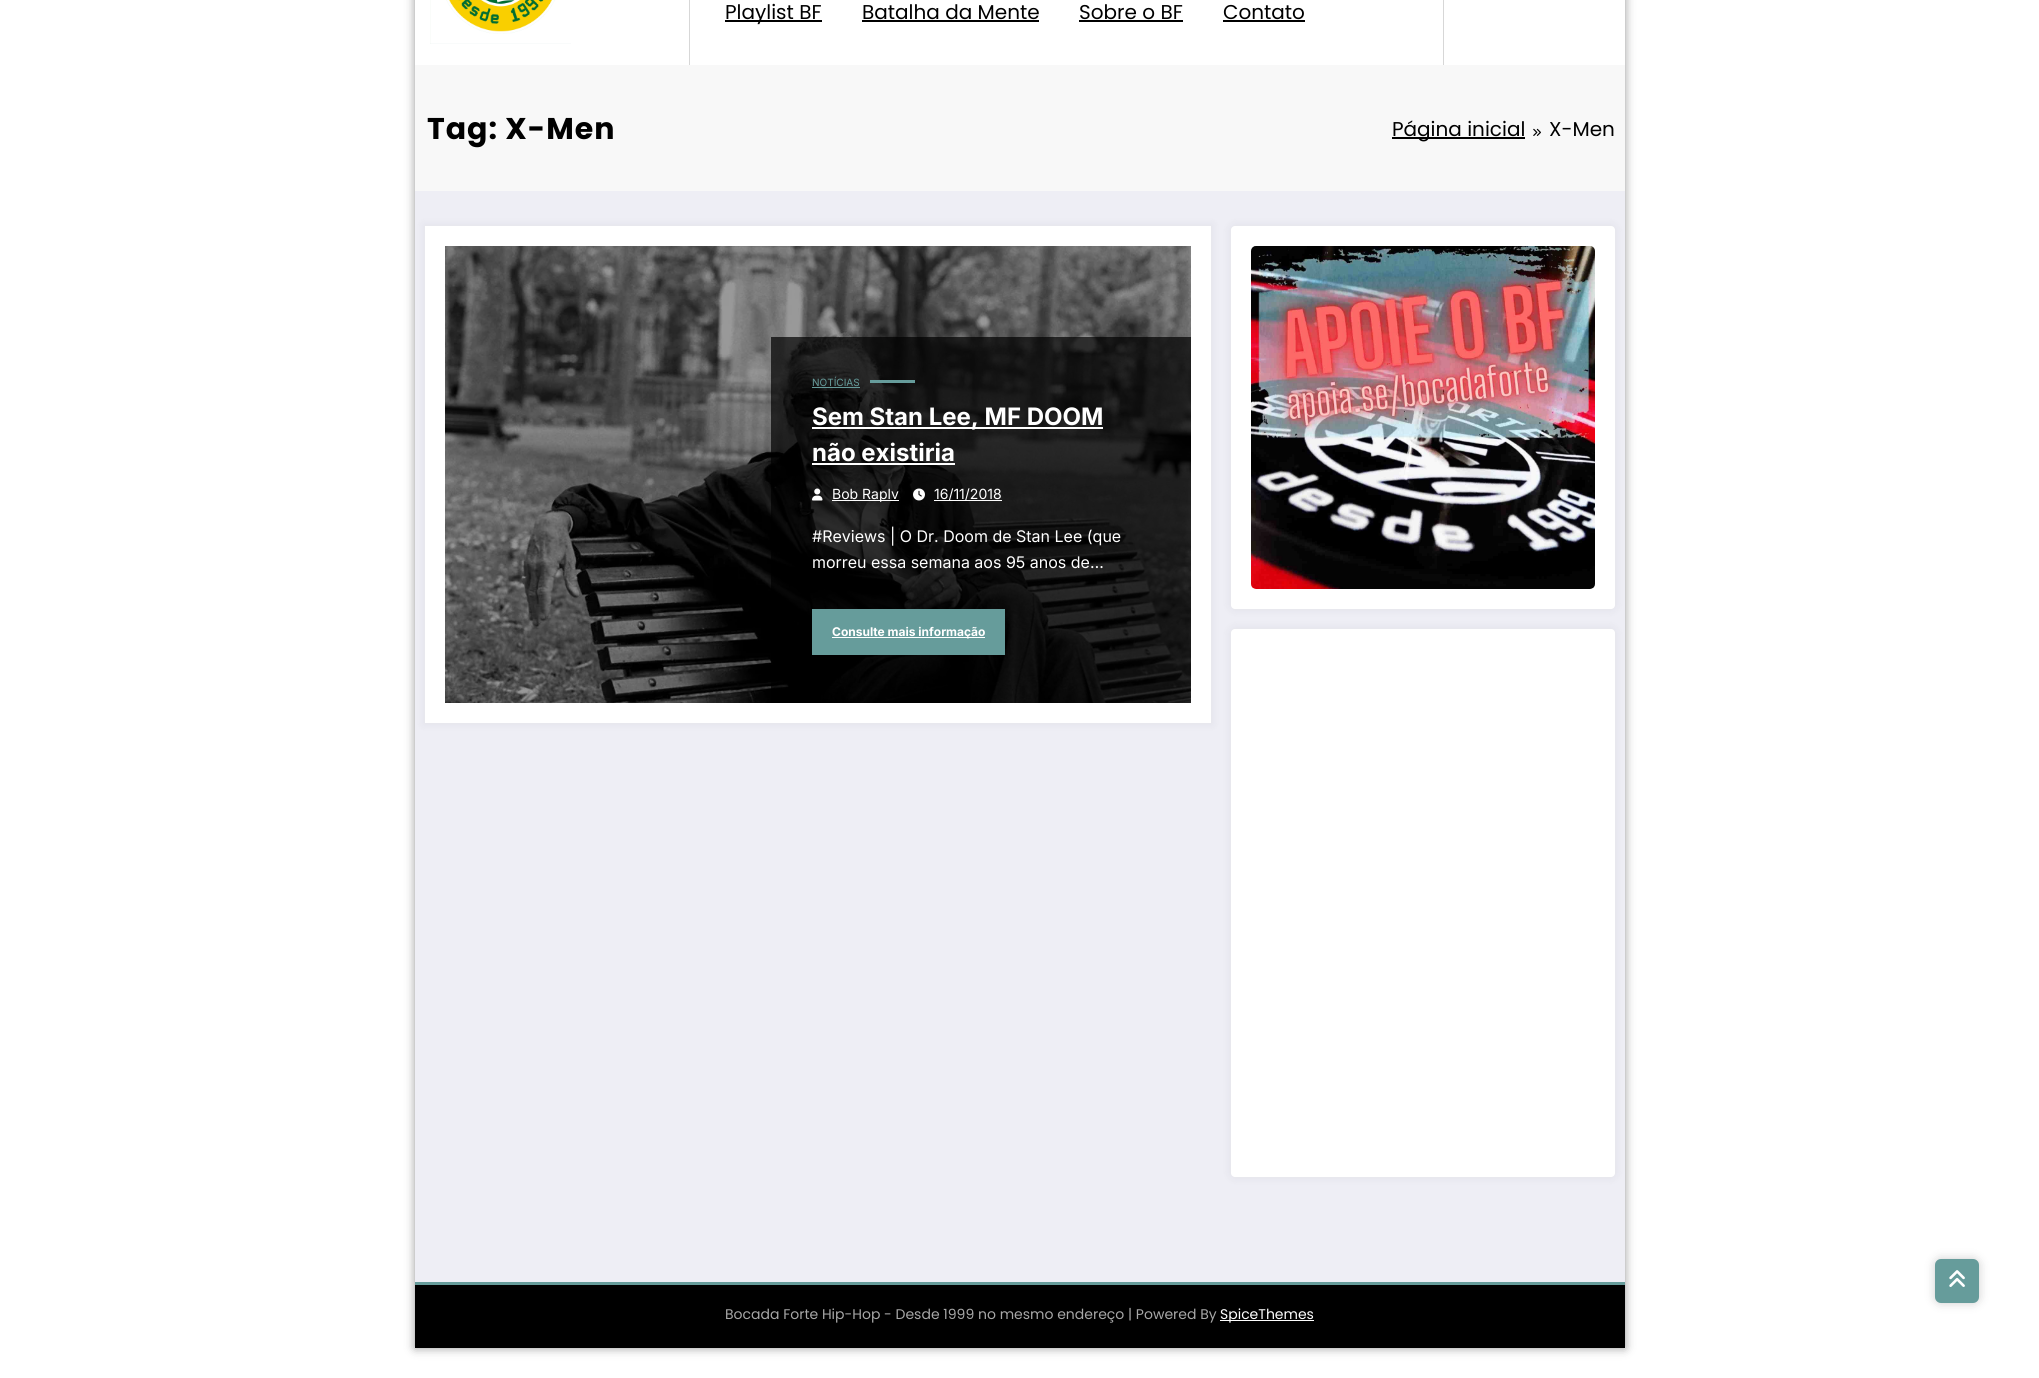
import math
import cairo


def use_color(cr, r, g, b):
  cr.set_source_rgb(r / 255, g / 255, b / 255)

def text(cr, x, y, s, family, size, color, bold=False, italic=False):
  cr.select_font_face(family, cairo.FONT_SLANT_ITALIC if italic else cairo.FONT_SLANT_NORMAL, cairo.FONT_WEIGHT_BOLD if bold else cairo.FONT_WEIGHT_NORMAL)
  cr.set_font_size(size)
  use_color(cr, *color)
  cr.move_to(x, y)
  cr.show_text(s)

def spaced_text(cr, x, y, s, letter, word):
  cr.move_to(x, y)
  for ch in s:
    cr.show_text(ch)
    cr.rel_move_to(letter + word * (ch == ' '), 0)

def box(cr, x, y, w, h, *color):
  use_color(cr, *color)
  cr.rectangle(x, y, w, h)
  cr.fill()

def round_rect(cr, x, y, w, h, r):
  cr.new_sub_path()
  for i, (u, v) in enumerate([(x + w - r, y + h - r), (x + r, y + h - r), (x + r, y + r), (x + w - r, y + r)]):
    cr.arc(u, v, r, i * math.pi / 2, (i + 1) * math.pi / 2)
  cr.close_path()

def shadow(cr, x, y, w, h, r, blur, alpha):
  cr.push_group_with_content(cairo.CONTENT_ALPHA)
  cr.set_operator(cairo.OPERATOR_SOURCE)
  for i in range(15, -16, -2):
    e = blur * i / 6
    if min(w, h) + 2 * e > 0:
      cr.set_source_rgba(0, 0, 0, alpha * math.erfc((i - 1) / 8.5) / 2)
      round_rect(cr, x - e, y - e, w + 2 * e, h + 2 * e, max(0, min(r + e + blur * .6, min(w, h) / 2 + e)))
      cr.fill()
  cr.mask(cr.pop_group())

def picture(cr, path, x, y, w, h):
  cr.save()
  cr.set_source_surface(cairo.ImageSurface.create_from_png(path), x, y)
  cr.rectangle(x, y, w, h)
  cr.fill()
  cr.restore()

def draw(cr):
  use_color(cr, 255, 255, 255)
  cr.paint()
  use_color(cr, 48, 48, 48)
  shadow(cr, 415, -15, 1210, 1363, 0, 5, 0.5)
  box(cr, 415, 191, 1210, 1091, 238, 238, 245)
  box(cr, 415, 0, 1210, 65, 255, 255, 255)
  picture(cr, "img_01.png", 430, 0, 141, 44)
  box(cr, 1443, 0, 1, 65, 215, 215, 215)
  box(cr, 689, 0, 1, 65, 215, 215, 215)
  box(cr, 725, 20, 97, 2, 0, 0, 0)
  box(cr, 862, 20, 177, 2, 0, 0, 0)
  box(cr, 1079, 20, 104, 2, 0, 0, 0)
  box(cr, 1223, 20, 82, 2, 0, 0, 0)
  box(cr, 415, 65, 1210, 126, 248, 248, 248)
  box(cr, 1392, 137, 133, 2, 0, 0, 0)
  picture(cr, "img_02.png", 1533, 128, 8, 8)
  use_color(cr, 23, 23, 35)
  shadow(cr, 423, 224, 790, 501, 0, 4, 0.05)
  box(cr, 425, 226, 786, 497, 255, 255, 255)
  picture(cr, "img_03.png", 445, 246, 746, 457)
  cr.set_source_rgba(0, 0, 0, 0.7)
  cr.rectangle(771, 337, 420, 366)
  cr.fill()
  box(cr, 812, 387, 48, 1, 102, 156, 155)
  box(cr, 870, 380, 45, 3, 102, 156, 155)
  box(cr, 812, 427, 291, 2, 255, 255, 255)
  box(cr, 812, 463, 143, 2, 255, 255, 255)
  picture(cr, "img_04.png", 812, 488, 11, 13)
  box(cr, 832, 500, 67, 1, 254, 254, 254)
  picture(cr, "img_05.png", 913, 488, 12, 13)
  box(cr, 934, 500, 68, 1, 254, 254, 254)
  box(cr, 812, 609, 193, 46, 102, 156, 155)
  box(cr, 832, 637, 153, 1, 255, 255, 255)
  use_color(cr, 23, 23, 35)
  shadow(cr, 1229, 224, 388, 387, 6, 4, 0.05)
  use_color(cr, 255, 255, 255)
  round_rect(cr, 1231, 226, 384, 383, 4)
  cr.fill()
  picture(cr, "img_06.png", 1251, 246, 344, 343)
  use_color(cr, 23, 23, 35)
  shadow(cr, 1229, 627, 388, 552, 6, 4, 0.05)
  use_color(cr, 255, 255, 255)
  round_rect(cr, 1231, 629, 384, 548, 4)
  cr.fill()
  box(cr, 415, 1282, 1210, 3, 102, 156, 155)
  box(cr, 415, 1285, 1210, 63, 0, 0, 0)
  box(cr, 1220, 1320, 94, 1, 255, 255, 255)
  use_color(cr, 0, 0, 0)
  shadow(cr, 1935, 1259, 44, 44, 6, 5, 0.2)
  use_color(cr, 102, 156, 155)
  round_rect(cr, 1935, 1259, 44, 44, 6)
  cr.fill()
  picture(cr, "img_07.png", 1949, 1270, 16, 17)
  text(cr, 725, 19, "Playlist BF", "Poppins", 20, (0, 0, 0))
  text(cr, 862, 19, "Batalha da Mente", "Poppins", 20, (0, 0, 0))
  text(cr, 1079, 19, "Sobre o BF", "Poppins", 20, (0, 0, 0))
  text(cr, 1223, 19, "Contato", "Poppins", 20, (0, 0, 0))
  cr.select_font_face("Poppins", cairo.FONT_SLANT_NORMAL, cairo.FONT_WEIGHT_BOLD)
  cr.set_font_size(30)
  spaced_text(cr, 427, 139, "Tag: X-Men", 1, 0)
  text(cr, 1392, 136, "Página inicial", "Poppins", 20, (0, 0, 0))
  text(cr, 1549, 136, "X-Men", "Poppins", 20, (0, 0, 0))
  text(cr, 812, 386, "NOTÍCIAS", "Inter", 10, (102, 156, 155))
  text(cr, 812, 425, "Sem Stan Lee, MF DOOM", "Inter", 24, (255, 255, 255), bold=True)
  text(cr, 812, 461, "não existiria", "Inter", 24, (255, 255, 255), bold=True)
  text(cr, 832, 499, "Bob Raplv", "Inter", 14, (255, 255, 255))
  text(cr, 934, 499, "16/11/2018", "Inter", 14, (255, 255, 255))
  text(cr, 812, 542, "#Reviews | O Dr. Doom de Stan Lee (que", "Inter", 16, (255, 255, 255))
  text(cr, 812, 568, "morreu essa semana aos 95 anos de…", "Inter", 16, (255, 255, 255))
  text(cr, 832, 636, "Consulte mais informação", "Inter", 12, (255, 255, 255), bold=True)
  text(cr, 725, 1319, "Bocada Forte Hip-Hop - Desde 1999 no mesmo endereço | Powered By", "Poppins", 14, (167, 167, 167))
  text(cr, 1220, 1319, "SpiceThemes", "Poppins", 14, (255, 255, 255))


surface = cairo.ImageSurface(cairo.FORMAT_RGB24, 2039, 1378)
cr = cairo.Context(surface)
options = cairo.FontOptions()
options.set_hint_metrics(cairo.HINT_METRICS_OFF)
options.set_hint_style(cairo.HINT_STYLE_NONE)
cr.set_font_options(options)
cr.set_miter_limit(4)
draw(cr)
surface.write_to_png("out.png")
